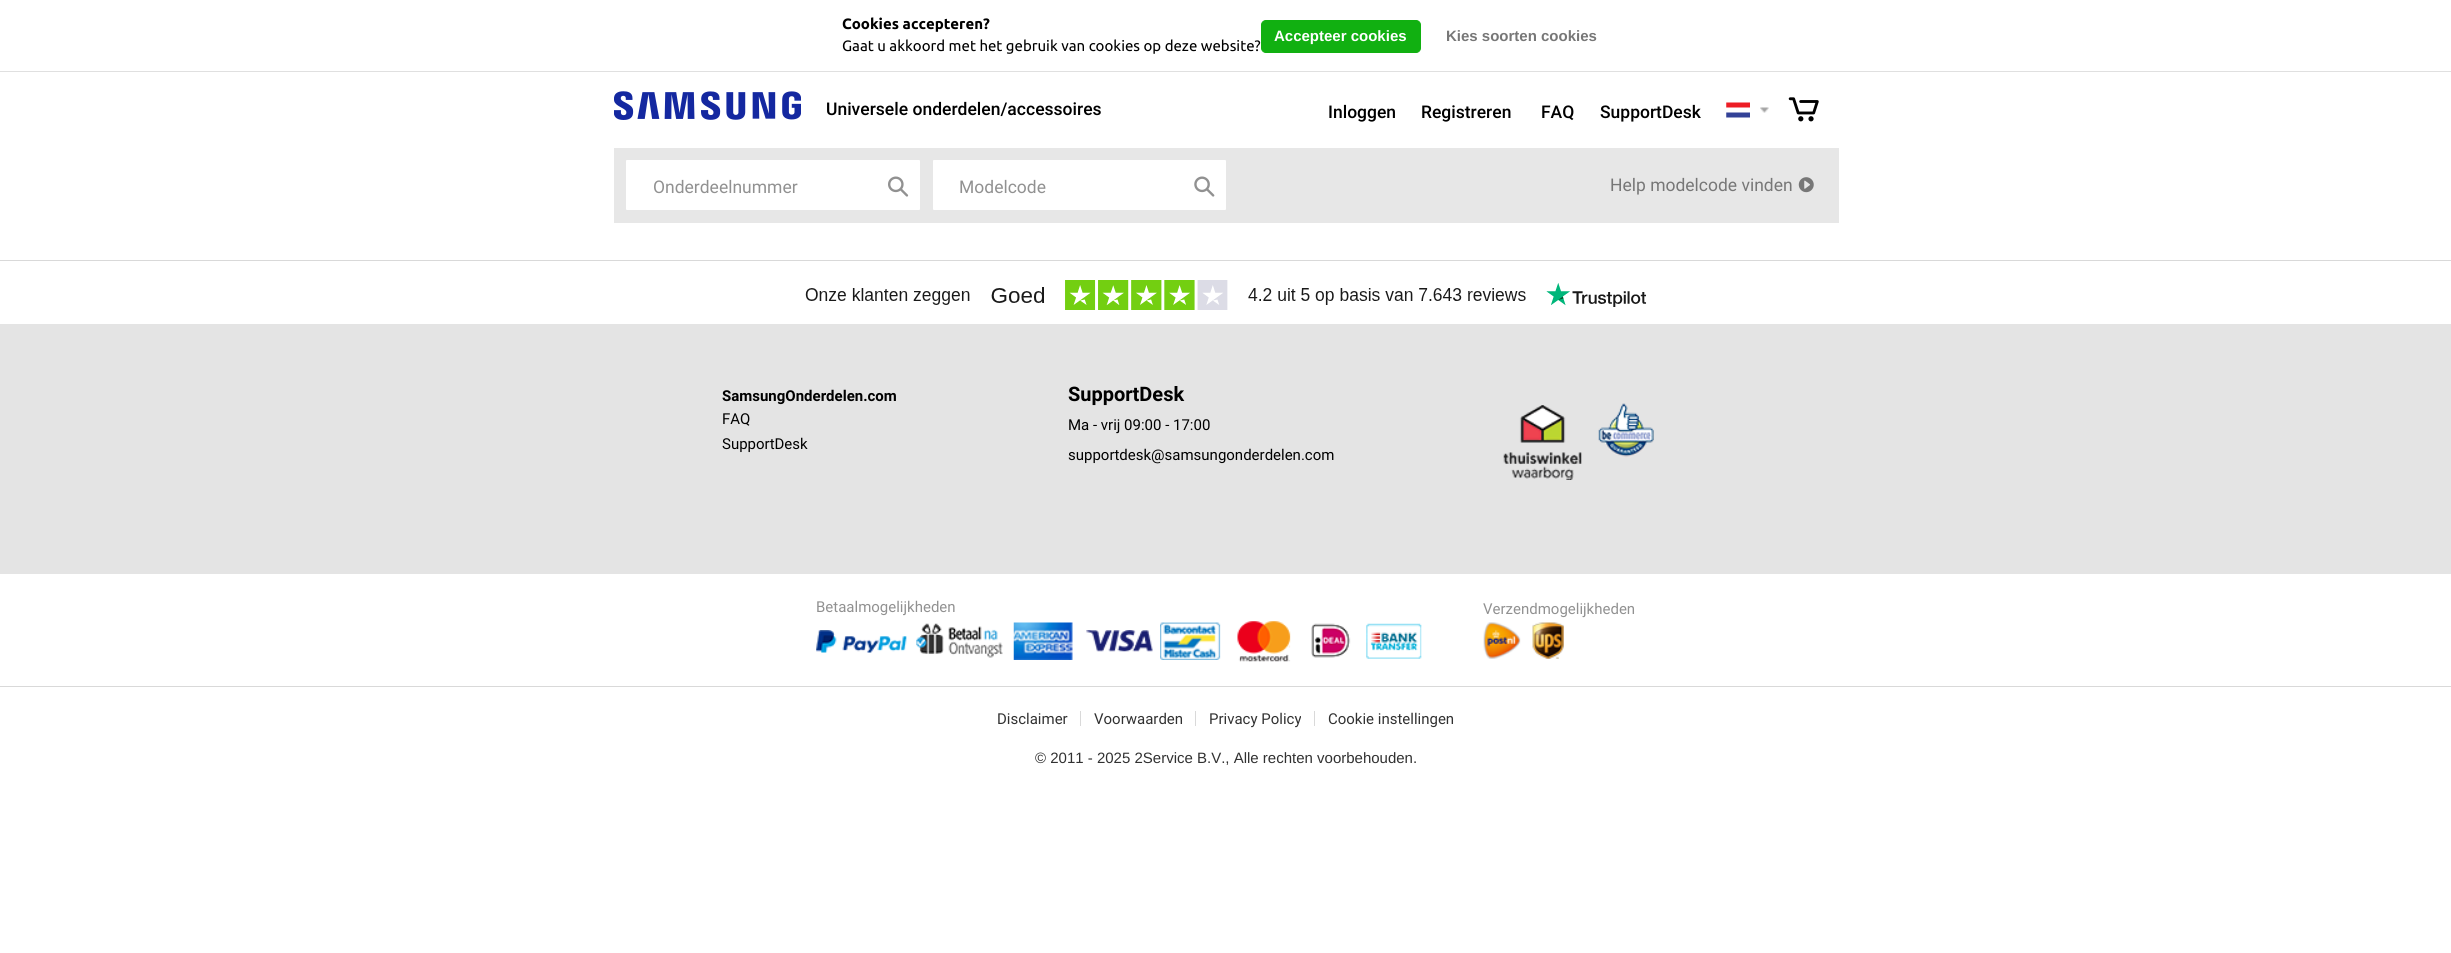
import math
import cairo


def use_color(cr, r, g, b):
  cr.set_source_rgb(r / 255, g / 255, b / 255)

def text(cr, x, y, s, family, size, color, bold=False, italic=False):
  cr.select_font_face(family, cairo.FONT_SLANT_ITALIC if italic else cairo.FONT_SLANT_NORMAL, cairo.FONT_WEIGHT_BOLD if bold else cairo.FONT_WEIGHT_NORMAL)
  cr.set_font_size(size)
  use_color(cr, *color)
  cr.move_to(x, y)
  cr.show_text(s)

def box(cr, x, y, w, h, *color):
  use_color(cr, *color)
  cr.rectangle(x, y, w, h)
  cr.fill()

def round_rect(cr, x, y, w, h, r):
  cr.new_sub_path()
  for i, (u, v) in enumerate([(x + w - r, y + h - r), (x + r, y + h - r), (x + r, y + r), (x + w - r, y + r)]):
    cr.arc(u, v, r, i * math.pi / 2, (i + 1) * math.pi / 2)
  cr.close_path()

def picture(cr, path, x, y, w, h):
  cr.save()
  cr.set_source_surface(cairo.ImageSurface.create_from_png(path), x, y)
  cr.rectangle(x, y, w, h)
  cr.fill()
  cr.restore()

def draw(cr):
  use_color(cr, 255, 255, 255)
  cr.paint()
  box(cr, 0, 71, 2451, 1, 224, 224, 224)
  use_color(cr, 17, 176, 17)
  round_rect(cr, 1261.5, 20.5, 159, 32, 4.5)
  cr.fill_preserve()
  cr.set_line_width(1)
  cr.stroke()
  picture(cr, "img_01.png", 614, 91, 187, 29)
  picture(cr, "img_02.png", 1726, 102, 24, 16)
  picture(cr, "img_03.png", 1760, 107, 9, 6)
  picture(cr, "img_04.png", 1788, 97, 31, 25)
  box(cr, 614, 148, 1225, 75, 231, 231, 231)
  use_color(cr, 255, 255, 255)
  round_rect(cr, 626, 160, 294, 50, 1)
  cr.fill()
  picture(cr, "img_05.png", 888, 176, 21, 21)
  round_rect(cr, 933, 160, 293, 50, 1)
  cr.fill()
  picture(cr, "img_06.png", 1194, 176, 21, 21)
  picture(cr, "img_07.png", 1798, 177, 16, 16)
  box(cr, 0, 260, 2451, 1, 217, 217, 217)
  picture(cr, "img_08.png", 805, 280, 842, 30)
  box(cr, 0, 324, 2451, 250, 228, 228, 228)
  picture(cr, "img_09.png", 1503, 405, 79, 75)
  picture(cr, "img_10.png", 1598, 403, 56, 55)
  picture(cr, "img_11.png", 816, 630, 91, 23)
  picture(cr, "img_12.png", 916, 623, 87, 35)
  picture(cr, "img_13.png", 1013, 622, 60, 38)
  picture(cr, "img_14.png", 1086, 630, 67, 22)
  picture(cr, "img_15.png", 1160, 622, 61, 38)
  picture(cr, "img_16.png", 1237, 621, 54, 41)
  picture(cr, "img_17.png", 1311, 623, 40, 35)
  picture(cr, "img_18.png", 1366, 623, 56, 36)
  picture(cr, "img_19.png", 1483, 622, 38, 37)
  picture(cr, "img_20.png", 1532, 622, 32, 37)
  box(cr, 0, 686, 2451, 1, 217, 217, 217)
  box(cr, 1080, 711, 1, 15, 217, 217, 217)
  box(cr, 1195, 711, 1, 15, 217, 217, 217)
  box(cr, 1314, 711, 1, 15, 217, 217, 217)
  text(cr, 842, 29, "Cookies accepteren?", "Ubuntu", 15, (0, 0, 0), bold=True)
  text(cr, 842, 51, "Gaat u akkoord met het gebruik van cookies op deze website?", "Ubuntu", 15, (0, 0, 0))
  text(cr, 1274, 41, "Accepteer cookies", "Liberation Sans", 15, (255, 255, 255), bold=True)
  text(cr, 1446, 41, "Kies soorten cookies", "Liberation Sans", 15, (119, 119, 119), bold=True)
  text(cr, 826, 115, "Universele onderdelen/accessoires", "Roboto Medium", 17.5, (0, 0, 0))
  text(cr, 1328, 118, "Inloggen", "Roboto Medium", 17.5, (0, 0, 0))
  text(cr, 1421, 118, "Registreren", "Roboto Medium", 17.5, (0, 0, 0))
  text(cr, 1541, 118, "FAQ", "Roboto Medium", 17.5, (0, 0, 0))
  text(cr, 1600, 118, "SupportDesk", "Roboto Medium", 17.5, (0, 0, 0))
  text(cr, 653, 193, "Onderdeelnummer", "Roboto", 17.5, (145, 145, 145))
  text(cr, 959, 193, "Modelcode", "Roboto", 17.5, (145, 145, 145))
  text(cr, 1610, 191, "Help modelcode vinden", "Roboto", 17.5, (119, 119, 119))
  text(cr, 722, 401, "SamsungOnderdelen.com", "Roboto", 15, (0, 0, 0), bold=True)
  text(cr, 722, 424, "FAQ", "Roboto", 15, (0, 0, 0))
  text(cr, 722, 449, "SupportDesk", "Roboto", 15, (0, 0, 0))
  text(cr, 1068, 401, "SupportDesk", "Roboto", 20, (0, 0, 0), bold=True)
  text(cr, 1068, 430, "Ma - vrij 09:00 - 17:00", "Roboto", 15, (0, 0, 0))
  text(cr, 1068, 460, "supportdesk@samsungonderdelen.com", "Roboto", 15, (0, 0, 0))
  text(cr, 816, 612, "Betaalmogelijkheden", "Roboto", 15, (145, 145, 145))
  text(cr, 1483, 614, "Verzendmogelijkheden", "Roboto", 15, (145, 145, 145))
  text(cr, 997, 724, "Disclaimer", "Roboto", 15, (49, 49, 49))
  text(cr, 1094, 724, "Voorwaarden", "Roboto", 15, (49, 49, 49))
  text(cr, 1209, 724, "Privacy Policy", "Roboto", 15, (49, 49, 49))
  text(cr, 1328, 724, "Cookie instellingen", "Roboto", 15, (49, 49, 49))
  text(cr, 1035, 763, "© 2011 - 2025 2Service B.V., Alle rechten voorbehouden.", "Liberation Sans", 15, (49, 49, 49))


surface = cairo.ImageSurface(cairo.FORMAT_RGB24, 2451, 953)
cr = cairo.Context(surface)
options = cairo.FontOptions()
options.set_hint_metrics(cairo.HINT_METRICS_OFF)
options.set_hint_style(cairo.HINT_STYLE_NONE)
cr.set_font_options(options)
cr.set_miter_limit(4)
draw(cr)
surface.write_to_png("out.png")
